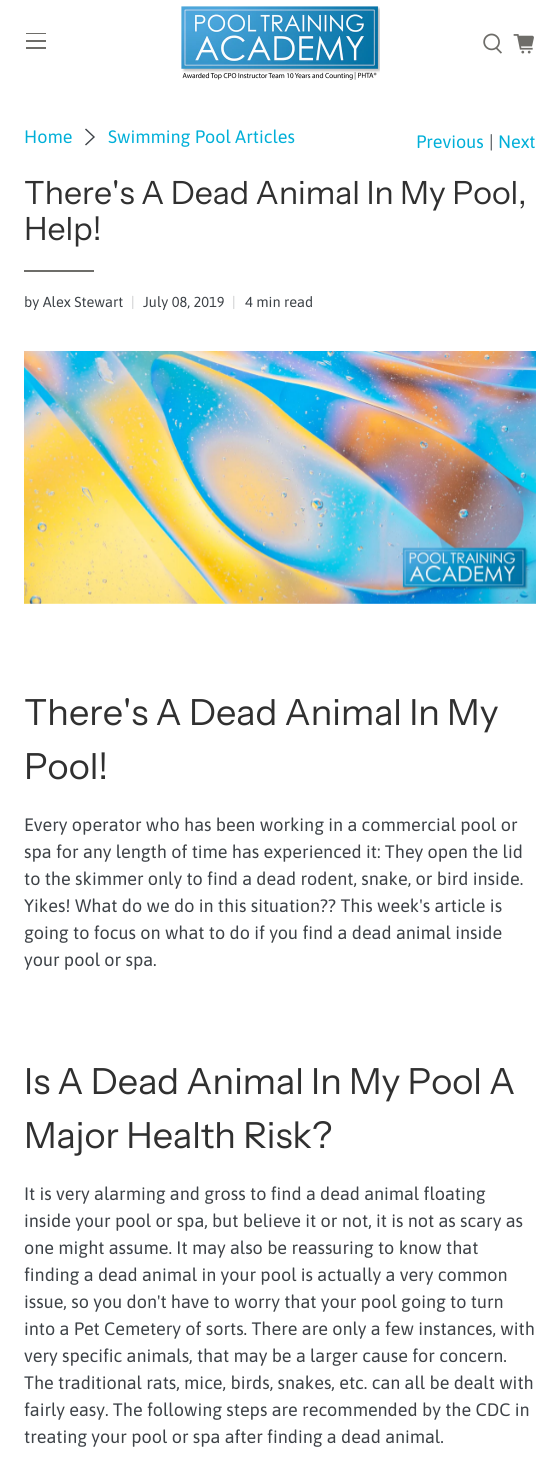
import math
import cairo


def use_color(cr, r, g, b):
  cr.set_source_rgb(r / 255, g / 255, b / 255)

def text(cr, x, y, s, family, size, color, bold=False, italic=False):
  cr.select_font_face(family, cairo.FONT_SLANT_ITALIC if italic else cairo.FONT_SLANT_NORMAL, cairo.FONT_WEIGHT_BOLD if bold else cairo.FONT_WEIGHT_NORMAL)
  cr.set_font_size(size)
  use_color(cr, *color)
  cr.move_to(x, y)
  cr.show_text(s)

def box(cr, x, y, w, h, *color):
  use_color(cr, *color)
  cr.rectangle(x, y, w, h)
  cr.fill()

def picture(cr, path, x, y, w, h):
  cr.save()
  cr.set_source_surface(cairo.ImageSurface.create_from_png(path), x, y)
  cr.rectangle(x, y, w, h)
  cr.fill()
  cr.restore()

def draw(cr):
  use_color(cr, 255, 255, 255)
  cr.paint()
  box(cr, 26, 33, 20, 1, 110, 109, 105)
  box(cr, 26, 40, 20, 2, 110, 109, 105)
  box(cr, 26, 47, 20, 2, 110, 109, 105)
  picture(cr, "img_01.png", 181, 6, 199, 74)
  picture(cr, "img_02.png", 483, 33, 19, 21)
  picture(cr, "img_03.png", 513, 34, 21, 20)
  use_color(cr, 61, 66, 71)
  cr.new_path()
  cr.move_to(86, 145.5)
  cr.line_to(85, 144.5)
  cr.line_to(93, 137)
  cr.line_to(85, 129.5)
  cr.line_to(86, 128.5)
  cr.line_to(95, 137)
  cr.close_path()
  cr.fill()
  box(cr, 24, 270, 70, 2, 110, 109, 105)
  picture(cr, "img_04.png", 24, 351, 512, 253)
  text(cr, 24, 143, "Home", "Asap", 18, (0, 175, 216))
  text(cr, 108, 143, "Swimming Pool Articles", "Asap", 18, (0, 175, 216))
  text(cr, 416, 148, "Previous", "Asap", 18, (0, 175, 216))
  text(cr, 489, 148, "|", "Asap", 18, (61, 66, 71))
  text(cr, 498, 148, "Next", "Asap", 18, (0, 175, 216))
  text(cr, 24, 204, "There's A Dead Animal In My Pool,", "Instrument Sans", 32, (48, 48, 48))
  text(cr, 24, 240, "Help!", "Instrument Sans", 32, (48, 48, 48))
  text(cr, 24, 307, "by Alex Stewart", "Asap", 14.5, (61, 66, 71))
  text(cr, 131, 307, "|", "Asap", 14.5, (197, 198, 200))
  text(cr, 143, 307, "July 08, 2019", "Asap", 14.5, (61, 66, 71))
  text(cr, 232, 307, "|", "Asap", 14.5, (197, 198, 200))
  text(cr, 245, 307, "4 min read", "Asap", 14.5, (61, 66, 71))
  text(cr, 24, 725, "There's A Dead Animal In My", "Instrument Sans", 36, (48, 48, 48))
  text(cr, 24, 779, "Pool!", "Instrument Sans", 36, (48, 48, 48))
  text(cr, 24, 831, "Every operator who has been working in a commercial pool or", "Asap", 18, (61, 66, 71))
  text(cr, 24, 858, "spa for any length of time has experienced it: They open the lid", "Asap", 18, (61, 66, 71))
  text(cr, 24, 885, "to the skimmer only to find a dead rodent, snake, or bird inside.", "Asap", 18, (61, 66, 71))
  text(cr, 24, 912, "Yikes! What do we do in this situation?? This week's article is", "Asap", 18, (61, 66, 71))
  text(cr, 24, 939, "going to focus on what to do if you find a dead animal inside", "Asap", 18, (61, 66, 71))
  text(cr, 24, 966, "your pool or spa.", "Asap", 18, (61, 66, 71))
  text(cr, 24, 1094, "Is A Dead Animal In My Pool A", "Instrument Sans", 36, (48, 48, 48))
  text(cr, 24, 1148, "Major Health Risk?", "Instrument Sans", 36, (48, 48, 48))
  text(cr, 24, 1200, "It is very alarming and gross to find a dead animal floating", "Asap", 18, (61, 66, 71))
  text(cr, 24, 1227, "inside your pool or spa, but believe it or not, it is not as scary as", "Asap", 18, (61, 66, 71))
  text(cr, 24, 1254, "one might assume. It may also be reassuring to know that", "Asap", 18, (61, 66, 71))
  text(cr, 24, 1281, "finding a dead animal in your pool is actually a very common", "Asap", 18, (61, 66, 71))
  text(cr, 24, 1308, "issue, so you don't have to worry that your pool going to turn", "Asap", 18, (61, 66, 71))
  text(cr, 24, 1335, "into a Pet Cemetery of sorts. There are only a few instances, with", "Asap", 18, (61, 66, 71))
  text(cr, 24, 1362, "very specific animals, that may be a larger cause for concern.", "Asap", 18, (61, 66, 71))
  text(cr, 24, 1389, "The traditional rats, mice, birds, snakes, etc. can all be dealt with", "Asap", 18, (61, 66, 71))
  text(cr, 24, 1416, "fairly easy. The following steps are recommended by the CDC in", "Asap", 18, (61, 66, 71))
  text(cr, 24, 1443, "treating your pool or spa after finding a dead animal.", "Asap", 18, (61, 66, 71))


surface = cairo.ImageSurface(cairo.FORMAT_RGB24, 560, 1459)
cr = cairo.Context(surface)
options = cairo.FontOptions()
options.set_hint_metrics(cairo.HINT_METRICS_OFF)
options.set_hint_style(cairo.HINT_STYLE_NONE)
cr.set_font_options(options)
cr.set_miter_limit(4)
draw(cr)
surface.write_to_png("out.png")
